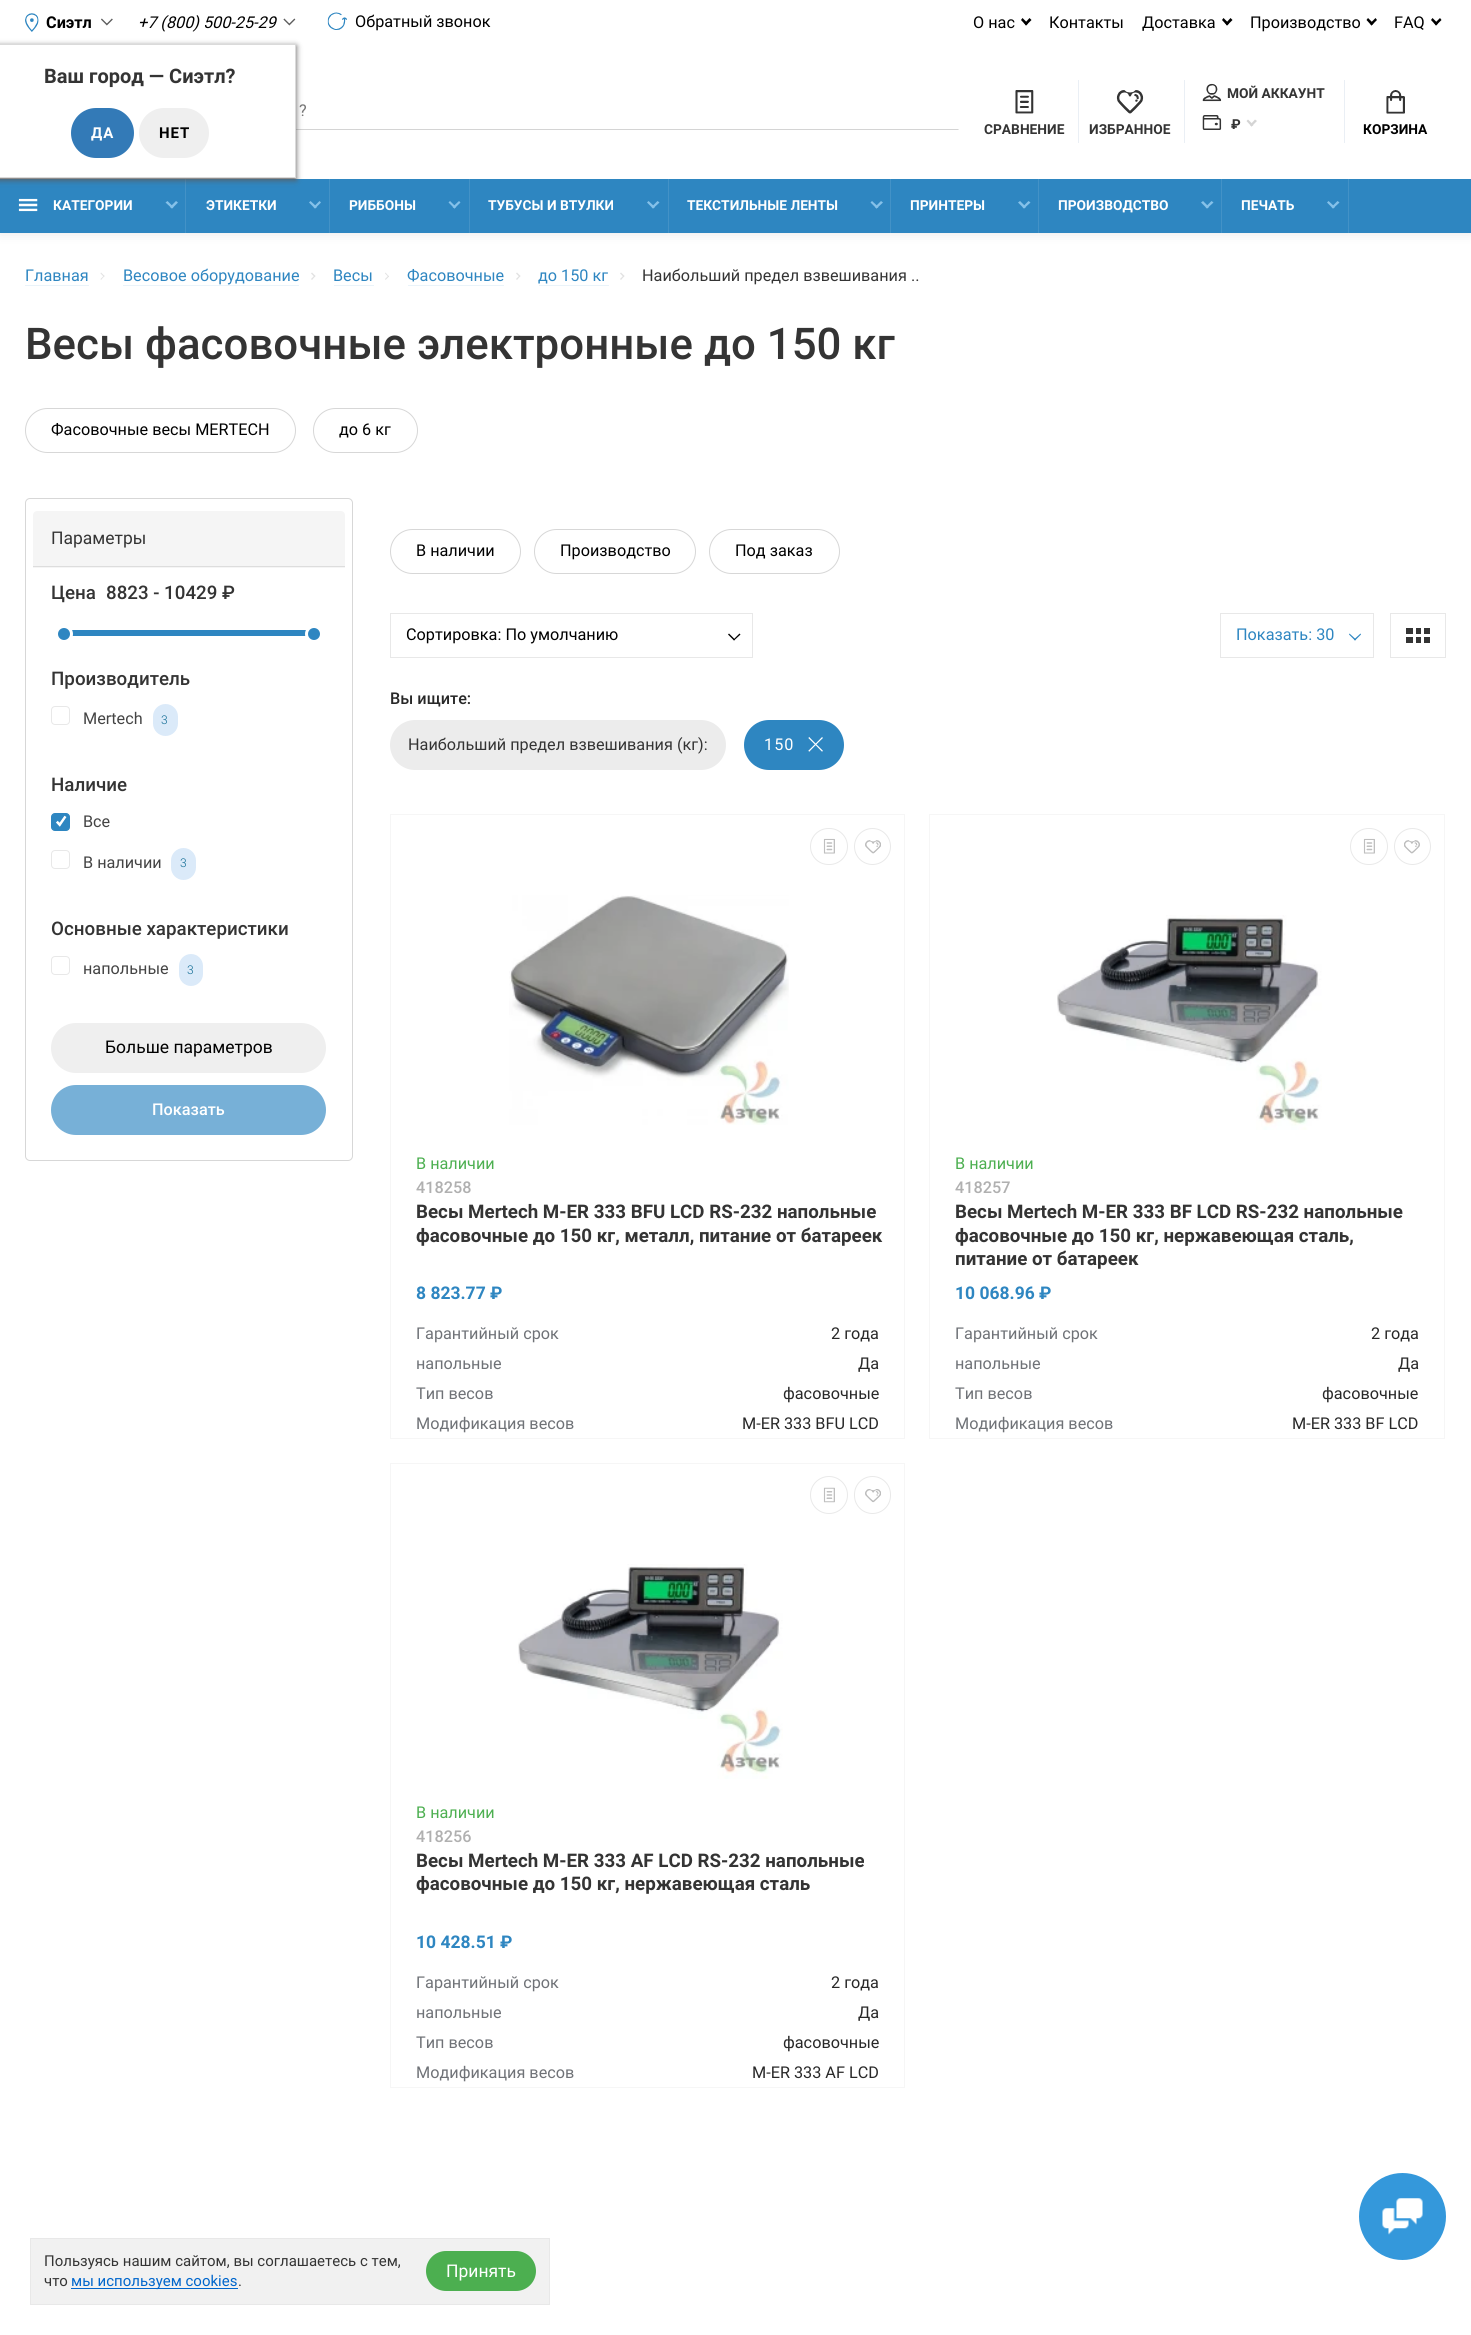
import math
import cairo


def use_color(cr, r, g, b):
  cr.set_source_rgb(r / 255, g / 255, b / 255)

def text(cr, x, y, s, family, size, color, bold=False, italic=False):
  cr.select_font_face(family, cairo.FONT_SLANT_ITALIC if italic else cairo.FONT_SLANT_NORMAL, cairo.FONT_WEIGHT_BOLD if bold else cairo.FONT_WEIGHT_NORMAL)
  cr.set_font_size(size)
  use_color(cr, *color)
  cr.move_to(x, y)
  cr.show_text(s)

def spaced_text(cr, x, y, s, letter, word):
  cr.move_to(x, y)
  for ch in s:
    cr.show_text(ch)
    cr.rel_move_to(letter + word * (ch == ' '), 0)

def box(cr, x, y, w, h, *color):
  use_color(cr, *color)
  cr.rectangle(x, y, w, h)
  cr.fill()

def round_rect(cr, x, y, w, h, r):
  cr.new_sub_path()
  for i, (u, v) in enumerate([(x + w - r, y + h - r), (x + r, y + h - r), (x + r, y + r), (x + w - r, y + r)]):
    cr.arc(u, v, r, i * math.pi / 2, (i + 1) * math.pi / 2)
  cr.close_path()

def shadow(cr, x, y, w, h, r, blur, alpha):
  cr.push_group_with_content(cairo.CONTENT_ALPHA)
  cr.set_operator(cairo.OPERATOR_SOURCE)
  for i in range(15, -16, -2):
    e = blur * i / 6
    if min(w, h) + 2 * e > 0:
      cr.set_source_rgba(0, 0, 0, alpha * math.erfc((i - 1) / 8.5) / 2)
      round_rect(cr, x - e, y - e, w + 2 * e, h + 2 * e, max(0, min(r + e + blur * .6, min(w, h) / 2 + e)))
      cr.fill()
  cr.mask(cr.pop_group())

def picture(cr, path, x, y, w, h):
  cr.save()
  cr.set_source_surface(cairo.ImageSurface.create_from_png(path), x, y)
  cr.rectangle(x, y, w, h)
  cr.fill()
  cr.restore()

def draw(cr):
  use_color(cr, 255, 255, 255)
  cr.paint()
  use_color(cr, 0, 0, 0)
  shadow(cr, 0, 0, 1471, 233, 0, 6, 0.1)
  box(cr, 0, 0, 1471, 179, 255, 255, 255)
  picture(cr, "img_01.png", 283, 18, 13, 8)
  picture(cr, "img_02.png", 327, 12, 20, 18)
  picture(cr, "img_03.png", 25, 13, 14, 19)
  use_color(cr, 212, 212, 212)
  cr.new_path()
  cr.move_to(959, 130)
  cr.line_to(162, 130)
  cr.line_to(164, 129)
  cr.line_to(958, 129)
  cr.close_path()
  cr.fill()
  box(cr, 0, 179, 1471, 54, 46, 134, 193)
  box(cr, 185, 179, 1, 54, 67, 146, 199)
  use_color(cr, 91, 90, 90)
  shadow(cr, -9, 46, 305, 134, 0, 3, 1)
  use_color(cr, 255, 255, 255)
  cr.rectangle(-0.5, 44.5, 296, 133)
  cr.fill_preserve()
  use_color(cr, 218, 218, 218)
  cr.set_line_width(1)
  cr.stroke()
  use_color(cr, 51, 122, 183)
  round_rect(cr, 71, 108, 63, 50, 25)
  cr.fill()
  use_color(cr, 239, 239, 239)
  round_rect(cr, 139, 108, 70, 50, 25)
  cr.fill()
  picture(cr, "img_04.png", 101, 18, 12, 8)
  use_color(cr, 0, 0, 0)
  cr.new_path()
  cr.move_to(1029.5, 18)
  cr.line_to(1031.5, 20)
  cr.line_to(1026, 25.5)
  cr.line_to(1024.5, 23.5)
  cr.close_path()
  cr.fill()
  cr.new_path()
  cr.move_to(1022.5, 18)
  cr.line_to(1028, 23.5)
  cr.line_to(1026, 25.5)
  cr.line_to(1021, 20)
  cr.close_path()
  cr.fill()
  cr.new_path()
  cr.move_to(1230.5, 18)
  cr.line_to(1232.5, 20)
  cr.line_to(1227, 25.5)
  cr.line_to(1225.5, 23.5)
  cr.close_path()
  cr.fill()
  cr.new_path()
  cr.move_to(1223.5, 18)
  cr.line_to(1229, 23.5)
  cr.line_to(1227, 25.5)
  cr.line_to(1222, 20)
  cr.close_path()
  cr.fill()
  cr.new_path()
  cr.move_to(1375.5, 18)
  cr.line_to(1377, 20)
  cr.line_to(1371.5, 25.5)
  cr.line_to(1370, 23.5)
  cr.close_path()
  cr.fill()
  cr.new_path()
  cr.move_to(1368, 18)
  cr.line_to(1373.5, 23.5)
  cr.line_to(1371.5, 25.5)
  cr.line_to(1366.5, 20)
  cr.close_path()
  cr.fill()
  cr.new_path()
  cr.move_to(1440, 18)
  cr.line_to(1441.5, 20)
  cr.line_to(1436, 25.5)
  cr.line_to(1434.5, 23.5)
  cr.close_path()
  cr.fill()
  cr.new_path()
  cr.move_to(1432.5, 18)
  cr.line_to(1438, 23.5)
  cr.line_to(1436, 25.5)
  cr.line_to(1431, 20)
  cr.close_path()
  cr.fill()
  picture(cr, "img_05.png", 1015, 90, 19, 24)
  box(cr, 1078, 80, 1, 63, 234, 239, 245)
  picture(cr, "img_06.png", 1116, 90, 28, 24)
  box(cr, 1184, 80, 1, 63, 234, 239, 245)
  picture(cr, "img_07.png", 1202, 83, 20, 19)
  picture(cr, "img_08.png", 1202, 115, 20, 15)
  use_color(cr, 212, 212, 212)
  cr.new_path()
  cr.move_to(1255, 119.5)
  cr.line_to(1257, 121)
  cr.line_to(1251.5, 126.5)
  cr.line_to(1250, 125)
  cr.close_path()
  cr.fill()
  cr.new_path()
  cr.move_to(1248, 119.5)
  cr.line_to(1253.5, 125)
  cr.line_to(1251.5, 126.5)
  cr.line_to(1246.5, 121)
  cr.close_path()
  cr.fill()
  box(cr, 1344, 80, 1, 63, 234, 239, 245)
  picture(cr, "img_09.png", 1386, 90, 19, 24)
  picture(cr, "img_10.png", 18, 198, 20, 14)
  use_color(cr, 133, 193, 233)
  cr.new_path()
  cr.move_to(176, 201)
  cr.line_to(178, 202.5)
  cr.line_to(172, 208.5)
  cr.line_to(170, 207)
  cr.close_path()
  cr.fill()
  cr.new_path()
  cr.move_to(167.5, 201)
  cr.line_to(173.5, 207)
  cr.line_to(172, 208.5)
  cr.line_to(165.5, 202.5)
  cr.close_path()
  cr.fill()
  box(cr, 329, 179, 1, 54, 67, 146, 199)
  use_color(cr, 133, 193, 233)
  cr.new_path()
  cr.move_to(319.5, 201)
  cr.line_to(321, 202.5)
  cr.line_to(315, 208.5)
  cr.line_to(313.5, 207)
  cr.close_path()
  cr.fill()
  cr.new_path()
  cr.move_to(310.5, 201)
  cr.line_to(317, 207)
  cr.line_to(315, 208.5)
  cr.line_to(309, 202.5)
  cr.close_path()
  cr.fill()
  box(cr, 469, 179, 1, 54, 67, 146, 199)
  use_color(cr, 133, 193, 233)
  cr.new_path()
  cr.move_to(459, 201)
  cr.line_to(460.5, 202.5)
  cr.line_to(454.5, 208.5)
  cr.line_to(452.5, 207)
  cr.close_path()
  cr.fill()
  cr.new_path()
  cr.move_to(450, 201)
  cr.line_to(456, 207)
  cr.line_to(454.5, 208.5)
  cr.line_to(448.5, 202.5)
  cr.close_path()
  cr.fill()
  box(cr, 668, 179, 1, 54, 67, 146, 199)
  use_color(cr, 133, 193, 233)
  cr.new_path()
  cr.move_to(657.5, 201)
  cr.line_to(659.5, 202.5)
  cr.line_to(653, 208.5)
  cr.line_to(651.5, 207)
  cr.close_path()
  cr.fill()
  cr.new_path()
  cr.move_to(648.5, 201)
  cr.line_to(655, 207)
  cr.line_to(653, 208.5)
  cr.line_to(647, 202.5)
  cr.close_path()
  cr.fill()
  box(cr, 890, 179, 1, 54, 67, 146, 199)
  use_color(cr, 133, 193, 233)
  cr.new_path()
  cr.move_to(881, 201)
  cr.line_to(883, 202.5)
  cr.line_to(876.5, 208.5)
  cr.line_to(875, 207)
  cr.close_path()
  cr.fill()
  cr.new_path()
  cr.move_to(872, 201)
  cr.line_to(878.5, 207)
  cr.line_to(876.5, 208.5)
  cr.line_to(870.5, 202.5)
  cr.close_path()
  cr.fill()
  box(cr, 1038, 179, 1, 54, 67, 146, 199)
  use_color(cr, 133, 193, 233)
  cr.new_path()
  cr.move_to(1028.5, 201)
  cr.line_to(1030.5, 202.5)
  cr.line_to(1024, 208.5)
  cr.line_to(1022.5, 207)
  cr.close_path()
  cr.fill()
  cr.new_path()
  cr.move_to(1020, 201)
  cr.line_to(1026, 207)
  cr.line_to(1024, 208.5)
  cr.line_to(1018, 202.5)
  cr.close_path()
  cr.fill()
  box(cr, 1221, 179, 1, 54, 67, 146, 199)
  use_color(cr, 133, 193, 233)
  cr.new_path()
  cr.move_to(1211.5, 201)
  cr.line_to(1213.5, 202.5)
  cr.line_to(1207, 208.5)
  cr.line_to(1205.5, 207)
  cr.close_path()
  cr.fill()
  cr.new_path()
  cr.move_to(1203, 201)
  cr.line_to(1209, 207)
  cr.line_to(1207, 208.5)
  cr.line_to(1201, 202.5)
  cr.close_path()
  cr.fill()
  box(cr, 1348, 179, 1, 54, 67, 146, 199)
  use_color(cr, 133, 193, 233)
  cr.new_path()
  cr.move_to(1337.5, 201)
  cr.line_to(1339.5, 202.5)
  cr.line_to(1333, 208.5)
  cr.line_to(1331.5, 207)
  cr.close_path()
  cr.fill()
  cr.new_path()
  cr.move_to(1328.5, 201)
  cr.line_to(1335, 207)
  cr.line_to(1333, 208.5)
  cr.line_to(1327, 202.5)
  cr.close_path()
  cr.fill()
  box(cr, 25, 285, 64, 1, 234, 243, 249)
  use_color(cr, 226, 226, 226)
  cr.new_path()
  cr.move_to(100.5, 273.5)
  cr.line_to(101, 272.5)
  cr.line_to(104.5, 276)
  cr.line_to(104, 277)
  cr.close_path()
  cr.fill()
  cr.new_path()
  cr.move_to(100.5, 279)
  cr.line_to(104, 275.5)
  cr.line_to(104.5, 276)
  cr.line_to(101, 280)
  cr.close_path()
  cr.fill()
  box(cr, 123, 285, 176, 1, 234, 243, 249)
  use_color(cr, 226, 226, 226)
  cr.new_path()
  cr.move_to(311, 273.5)
  cr.line_to(312, 272.5)
  cr.line_to(315.5, 276)
  cr.line_to(314.5, 277)
  cr.close_path()
  cr.fill()
  cr.new_path()
  cr.move_to(311, 279)
  cr.line_to(314.5, 275.5)
  cr.line_to(315.5, 276)
  cr.line_to(312, 280)
  cr.close_path()
  cr.fill()
  box(cr, 334, 285, 40, 1, 234, 243, 249)
  use_color(cr, 226, 226, 226)
  cr.new_path()
  cr.move_to(385, 273.5)
  cr.line_to(385.5, 272.5)
  cr.line_to(389, 276.5)
  cr.line_to(388.5, 277)
  cr.close_path()
  cr.fill()
  cr.new_path()
  cr.move_to(385, 279)
  cr.line_to(388.5, 275.5)
  cr.line_to(389, 276.5)
  cr.line_to(385.5, 280)
  cr.close_path()
  cr.fill()
  box(cr, 408, 285, 96, 1, 234, 243, 249)
  use_color(cr, 226, 226, 226)
  cr.new_path()
  cr.move_to(516, 273.5)
  cr.line_to(517, 272.5)
  cr.line_to(520.5, 276)
  cr.line_to(519.5, 277)
  cr.close_path()
  cr.fill()
  cr.new_path()
  cr.move_to(516, 279)
  cr.line_to(519.5, 275.5)
  cr.line_to(520.5, 276)
  cr.line_to(517, 280)
  cr.close_path()
  cr.fill()
  box(cr, 539, 285, 70, 1, 234, 243, 249)
  use_color(cr, 226, 226, 226)
  cr.new_path()
  cr.move_to(620, 273.5)
  cr.line_to(621, 272.5)
  cr.line_to(624.5, 276)
  cr.line_to(623.5, 277)
  cr.close_path()
  cr.fill()
  cr.new_path()
  cr.move_to(620, 279)
  cr.line_to(623.5, 275.5)
  cr.line_to(624.5, 276)
  cr.line_to(621, 280)
  cr.close_path()
  cr.fill()
  round_rect(cr, 25.5, 408.5, 270, 44, 22)
  use_color(cr, 215, 215, 215)
  cr.stroke()
  round_rect(cr, 313.5, 408.5, 104, 44, 22)
  cr.stroke()
  round_rect(cr, 25.5, 498.5, 327, 662, 4.5)
  cr.stroke()
  use_color(cr, 245, 245, 245)
  cr.new_path()
  cr.move_to(37, 511)
  cr.line_to(341, 511)
  cr.curve_to(343, 511, 345, 513, 345, 515)
  cr.line_to(345, 568)
  cr.line_to(33, 568)
  cr.line_to(33, 515)
  cr.curve_to(33, 513, 35, 511, 37, 511)
  cr.close_path()
  cr.fill()
  box(cr, 33, 566, 312, 1, 221, 221, 221)
  box(cr, 64, 630, 250, 6, 46, 134, 193)
  cr.arc(64, 634, 7.5, 0, 2 * math.pi)
  cr.fill_preserve()
  use_color(cr, 255, 255, 255)
  cr.set_line_width(3)
  cr.stroke()
  use_color(cr, 46, 134, 193)
  cr.arc(314, 634, 7.5, 0, 2 * math.pi)
  cr.fill_preserve()
  use_color(cr, 255, 255, 255)
  cr.stroke()
  round_rect(cr, 51.5, 706.5, 18, 18, 3.5)
  use_color(cr, 232, 232, 232)
  cr.set_line_width(1)
  cr.stroke()
  use_color(cr, 219, 234, 249)
  round_rect(cr, 153, 704, 25, 32, 12.5)
  cr.fill()
  use_color(cr, 46, 134, 193)
  round_rect(cr, 51.5, 813.5, 18, 17, 3.5)
  cr.fill_preserve()
  cr.stroke()
  picture(cr, "img_11.png", 56, 815, 11, 12)
  round_rect(cr, 51.5, 850.5, 18, 18, 3.5)
  use_color(cr, 232, 232, 232)
  cr.stroke()
  use_color(cr, 219, 234, 249)
  round_rect(cr, 171, 848, 25, 32, 12.5)
  cr.fill()
  round_rect(cr, 51.5, 956.5, 18, 18, 3.5)
  use_color(cr, 232, 232, 232)
  cr.stroke()
  use_color(cr, 219, 234, 249)
  round_rect(cr, 179, 954, 24, 32, 12)
  cr.fill()
  use_color(cr, 239, 239, 239)
  round_rect(cr, 51, 1023, 275, 50, 25)
  cr.fill()
  use_color(cr, 119, 176, 215)
  round_rect(cr, 51, 1085, 275, 50, 25)
  cr.fill()
  round_rect(cr, 390.5, 529.5, 130, 44, 22)
  use_color(cr, 215, 215, 215)
  cr.stroke()
  round_rect(cr, 534.5, 529.5, 161, 44, 22)
  cr.stroke()
  round_rect(cr, 709.5, 529.5, 130, 44, 22)
  cr.stroke()
  cr.rectangle(390.5, 613.5, 362, 44)
  use_color(cr, 232, 232, 232)
  cr.stroke()
  use_color(cr, 0, 0, 0)
  cr.new_path()
  cr.move_to(739.5, 633.5)
  cr.line_to(740.5, 634.5)
  cr.line_to(734, 640.5)
  cr.line_to(733.5, 639.5)
  cr.close_path()
  cr.fill()
  cr.new_path()
  cr.move_to(729, 633.5)
  cr.line_to(735, 639.5)
  cr.line_to(734, 640.5)
  cr.line_to(728, 634.5)
  cr.close_path()
  cr.fill()
  cr.rectangle(1220.5, 613.5, 153, 44)
  use_color(cr, 232, 232, 232)
  cr.stroke()
  use_color(cr, 46, 134, 193)
  cr.new_path()
  cr.move_to(1360.5, 633.5)
  cr.line_to(1361, 634.5)
  cr.line_to(1355, 640.5)
  cr.line_to(1354, 639.5)
  cr.close_path()
  cr.fill()
  cr.new_path()
  cr.move_to(1349.5, 633.5)
  cr.line_to(1356, 639.5)
  cr.line_to(1355, 640.5)
  cr.line_to(1349, 634.5)
  cr.close_path()
  cr.fill()
  cr.rectangle(1390.5, 613.5, 55, 44)
  use_color(cr, 232, 232, 232)
  cr.stroke()
  box(cr, 1406, 628, 24, 15, 52, 52, 52)
  box(cr, 1421, 628, 3, 15, 255, 255, 255)
  box(cr, 1413, 628, 3, 15, 255, 255, 255)
  box(cr, 1406, 634, 24, 3, 255, 255, 255)
  use_color(cr, 236, 236, 236)
  round_rect(cr, 390, 720, 336, 50, 25)
  cr.fill()
  use_color(cr, 46, 134, 193)
  round_rect(cr, 744, 720, 100, 50, 25)
  cr.fill()
  picture(cr, "img_12.png", 808, 737, 15, 15)
  cr.rectangle(390.5, 814.5, 514, 624)
  use_color(cr, 246, 246, 246)
  cr.stroke()
  round_rect(cr, 810.5, 828.5, 37, 36, 18)
  use_color(cr, 233, 233, 233)
  cr.stroke()
  picture(cr, "img_13.png", 823, 838, 12, 16)
  cr.arc(872.5, 846.5, 18, 0, 2 * math.pi)
  cr.stroke()
  picture(cr, "img_14.png", 865, 840, 16, 14)
  picture(cr, "img_15.png", 509, 895, 280, 230)
  cr.rectangle(929.5, 814.5, 515, 624)
  use_color(cr, 246, 246, 246)
  cr.stroke()
  round_rect(cr, 1350.5, 828.5, 37, 36, 18)
  use_color(cr, 233, 233, 233)
  cr.stroke()
  picture(cr, "img_13.png", 1363, 838, 12, 16)
  cr.arc(1412.5, 846.5, 18, 0, 2 * math.pi)
  cr.stroke()
  picture(cr, "img_16.png", 1404, 840, 16, 14)
  picture(cr, "img_17.png", 1057, 915, 265, 215)
  cr.rectangle(390.5, 1463.5, 514, 624)
  use_color(cr, 246, 246, 246)
  cr.stroke()
  cr.arc(829, 1495, 18.5, 0, 2 * math.pi)
  use_color(cr, 233, 233, 233)
  cr.stroke()
  picture(cr, "img_18.png", 823, 1487, 12, 16)
  round_rect(cr, 854.5, 1476.5, 36, 37, 18)
  cr.stroke()
  picture(cr, "img_19.png", 865, 1489, 16, 14)
  picture(cr, "img_20.png", 518, 1564, 265, 215)
  use_color(cr, 52, 152, 219)
  cr.arc(1402.5, 2216.5, 43.5, 0, 2 * math.pi)
  cr.fill()
  picture(cr, "img_21.png", 1382, 2198, 41, 37)
  use_color(cr, 241, 241, 241)
  cr.rectangle(30.5, 2238.5, 519, 66)
  cr.fill_preserve()
  use_color(cr, 232, 232, 232)
  cr.stroke()
  box(cr, 71, 2288, 167, 1, 0, 102, 204)
  use_color(cr, 76, 175, 80)
  round_rect(cr, 426, 2251, 110, 40, 20)
  cr.fill()
  text(cr, 138, 28, "+7 (800) 500-25-29", "Roboto", 16.25, (0, 0, 0), italic=True)
  text(cr, 355, 27, "Обратный звонок", "Roboto", 16.25, (0, 0, 0))
  text(cr, 46, 28, "Сиэтл", "Roboto", 16.25, (0, 0, 0), bold=True)
  text(cr, 44, 83, "Ваш город — Сиэтл?", "Roboto", 20, (52, 52, 52), bold=True)
  cr.set_font_size(15)
  use_color(cr, 255, 255, 255)
  spaced_text(cr, 91, 138, "ДА", 1, 0)
  use_color(cr, 0, 0, 0)
  spaced_text(cr, 159, 138, "НЕТ", 1, 0)
  text(cr, 973, 28, "О нас", "Roboto", 16.25, (0, 0, 0))
  text(cr, 1049, 28, "Контакты", "Roboto", 16.25, (0, 0, 0))
  text(cr, 1142, 28, "Доставка", "Roboto", 16.25, (0, 0, 0))
  text(cr, 1250, 28, "Производство", "Roboto", 16.25, (0, 0, 0))
  text(cr, 1394, 28, "FAQ", "Roboto", 16.25, (0, 0, 0))
  text(cr, 299, 116, "?", "Roboto", 16.25, (117, 117, 117))
  text(cr, 984, 134, "СРАВНЕНИЕ", "Roboto", 13.75, (52, 52, 52), bold=True)
  text(cr, 1089, 134, "ИЗБРАННОЕ", "Roboto", 13.75, (52, 52, 52), bold=True)
  text(cr, 1227, 98, "МОЙ АККАУНТ", "Roboto", 13.75, (52, 52, 52), bold=True)
  text(cr, 1231, 129, "₽", "Roboto", 13.75, (52, 52, 52), bold=True)
  text(cr, 1363, 134, "КОРЗИНА", "Roboto", 13.75, (0, 0, 0), bold=True)
  text(cr, 53, 210, "КАТЕГОРИИ", "Roboto", 13.75, (255, 255, 255), bold=True)
  text(cr, 206, 210, "ЭТИКЕТКИ", "Roboto", 13.75, (255, 255, 255), bold=True)
  text(cr, 349, 210, "РИББОНЫ", "Roboto", 13.75, (255, 255, 255), bold=True)
  text(cr, 488, 210, "ТУБУСЫ И ВТУЛКИ", "Roboto", 13.75, (255, 255, 255), bold=True)
  text(cr, 687, 210, "ТЕКСТИЛЬНЫЕ ЛЕНТЫ", "Roboto", 13.75, (255, 255, 255), bold=True)
  text(cr, 910, 210, "ПРИНТЕРЫ", "Roboto", 13.75, (255, 255, 255), bold=True)
  text(cr, 1058, 210, "ПРОИЗВОДСТВО", "Roboto", 13.75, (255, 255, 255), bold=True)
  text(cr, 1241, 210, "ПЕЧАТЬ", "Roboto", 13.75, (255, 255, 255), bold=True)
  text(cr, 25, 281, "Главная", "Roboto", 16.25, (46, 134, 193))
  text(cr, 123, 281, "Весовое оборудование", "Roboto", 16.25, (46, 134, 193))
  text(cr, 333, 281, "Весы", "Roboto", 16.25, (46, 134, 193))
  text(cr, 407, 281, "Фасовочные", "Roboto", 16.25, (46, 134, 193))
  text(cr, 538, 281, "до 150 кг", "Roboto", 16.25, (46, 134, 193))
  text(cr, 642, 281, "Наибольший предел взвешивания ..", "Roboto", 16.25, (52, 52, 52))
  text(cr, 25, 359, "Весы фасовочные электронные до 150 кг", "Roboto Medium", 43.75, (52, 52, 52))
  text(cr, 51, 435, "Фасовочные весы MERTECH", "Roboto", 16.25, (0, 0, 0))
  text(cr, 339, 435, "до 6 кг", "Roboto", 16.25, (0, 0, 0))
  text(cr, 51, 544, "Параметры", "Roboto", 17.5, (52, 52, 52))
  text(cr, 51, 599, "Цена", "Roboto Medium", 18.75, (52, 52, 52))
  text(cr, 106, 599, "8823 - 10429 ₽", "Roboto Medium", 18.75, (52, 52, 52))
  text(cr, 51, 685, "Производитель", "Roboto Medium", 18.75, (52, 52, 52))
  text(cr, 83, 724, "Mertech", "Roboto", 16.25, (68, 68, 68))
  text(cr, 161, 724, "3", "Roboto Light", 12, (14, 106, 147))
  text(cr, 51, 791, "Наличие", "Roboto Medium", 18.75, (52, 52, 52))
  text(cr, 83, 827, "Все", "Roboto", 16.25, (68, 68, 68))
  text(cr, 83, 868, "В наличии", "Roboto", 16.25, (68, 68, 68))
  text(cr, 180, 867, "3", "Roboto Light", 12, (14, 106, 147))
  text(cr, 51, 935, "Основные характеристики", "Roboto Medium", 18.75, (52, 52, 52))
  text(cr, 83, 974, "напольные", "Roboto", 16.25, (68, 68, 68))
  text(cr, 187, 974, "3", "Roboto Light", 12, (14, 106, 147))
  text(cr, 105, 1053, "Больше параметров", "Roboto", 17.5, (0, 0, 0))
  text(cr, 152, 1115, "Показать", "Roboto Medium", 16.25, (255, 255, 255))
  text(cr, 416, 556, "В наличии", "Roboto", 16.25, (0, 0, 0))
  text(cr, 560, 556, "Производство", "Roboto", 16.25, (0, 0, 0))
  text(cr, 735, 556, "Под заказ", "Roboto", 16.25, (0, 0, 0))
  text(cr, 406, 640, "Сортировка: По умолчанию", "Roboto", 16.25, (0, 0, 0))
  text(cr, 1236, 640, "Показать: 30", "Roboto", 16.25, (46, 134, 193))
  text(cr, 390, 704, "Вы ищите:", "Roboto Medium", 16.25, (40, 40, 40))
  text(cr, 408, 750, "Наибольший предел взвешивания (кг):", "Roboto", 16.25, (52, 52, 52))
  use_color(cr, 255, 255, 255)
  spaced_text(cr, 764, 750, "150", 1, 0)
  text(cr, 416, 1169, "В наличии", "Roboto", 16.25, (76, 175, 80))
  text(cr, 416, 1193, "418258", "Roboto Medium", 16.25, (176, 176, 176))
  text(cr, 416, 1218, "Весы Mertech M-ER 333 BFU LCD RS-232 напольные", "Roboto", 18.75, (52, 52, 52), bold=True)
  text(cr, 416, 1242, "фасовочные до 150 кг, металл, питание от батареек", "Roboto", 18.75, (52, 52, 52), bold=True)
  text(cr, 416, 1299, "8 823.77 ₽", "Roboto", 17.5, (46, 134, 193), bold=True)
  text(cr, 416, 1339, "Гарантийный срок", "Roboto", 16.25, (111, 114, 119))
  text(cr, 831, 1339, "2 года", "Roboto", 16.25, (40, 40, 40))
  text(cr, 416, 1369, "напольные", "Roboto", 16.25, (111, 114, 119))
  text(cr, 858, 1369, "Да", "Roboto", 16.25, (40, 40, 40))
  text(cr, 416, 1399, "Тип весов", "Roboto", 16.25, (111, 114, 119))
  text(cr, 783, 1399, "фасовочные", "Roboto", 16.25, (40, 40, 40))
  text(cr, 416, 1429, "Модификация весов", "Roboto", 16.25, (111, 114, 119))
  text(cr, 742, 1429, "M-ER 333 BFU LCD", "Roboto", 16.25, (40, 40, 40))
  text(cr, 955, 1169, "В наличии", "Roboto", 16.25, (76, 175, 80))
  text(cr, 955, 1193, "418257", "Roboto Medium", 16.25, (176, 176, 176))
  text(cr, 955, 1218, "Весы Mertech M-ER 333 BF LCD RS-232 напольные", "Roboto", 18.75, (52, 52, 52), bold=True)
  text(cr, 955, 1242, "фасовочные до 150 кг, нержавеющая сталь,", "Roboto", 18.75, (52, 52, 52), bold=True)
  text(cr, 955, 1265, "питание от батареек", "Roboto", 18.75, (52, 52, 52), bold=True)
  text(cr, 955, 1299, "10 068.96 ₽", "Roboto", 17.5, (46, 134, 193), bold=True)
  text(cr, 955, 1339, "Гарантийный срок", "Roboto", 16.25, (111, 114, 119))
  text(cr, 1371, 1339, "2 года", "Roboto", 16.25, (40, 40, 40))
  text(cr, 955, 1369, "напольные", "Roboto", 16.25, (111, 114, 119))
  text(cr, 1398, 1369, "Да", "Roboto", 16.25, (40, 40, 40))
  text(cr, 955, 1399, "Тип весов", "Roboto", 16.25, (111, 114, 119))
  text(cr, 1322, 1399, "фасовочные", "Roboto", 16.25, (40, 40, 40))
  text(cr, 955, 1429, "Модификация весов", "Roboto", 16.25, (111, 114, 119))
  text(cr, 1292, 1429, "M-ER 333 BF LCD", "Roboto", 16.25, (40, 40, 40))
  text(cr, 416, 1818, "В наличии", "Roboto", 16.25, (76, 175, 80))
  text(cr, 416, 1842, "418256", "Roboto Medium", 16.25, (176, 176, 176))
  text(cr, 416, 1867, "Весы Mertech M-ER 333 AF LCD RS-232 напольные", "Roboto", 18.75, (52, 52, 52), bold=True)
  text(cr, 416, 1890, "фасовочные до 150 кг, нержавеющая сталь", "Roboto", 18.75, (52, 52, 52), bold=True)
  text(cr, 416, 1948, "10 428.51 ₽", "Roboto", 17.5, (46, 134, 193), bold=True)
  text(cr, 416, 1988, "Гарантийный срок", "Roboto", 16.25, (111, 114, 119))
  text(cr, 831, 1988, "2 года", "Roboto", 16.25, (40, 40, 40))
  text(cr, 416, 2018, "напольные", "Roboto", 16.25, (111, 114, 119))
  text(cr, 858, 2018, "Да", "Roboto", 16.25, (40, 40, 40))
  text(cr, 416, 2048, "Тип весов", "Roboto", 16.25, (111, 114, 119))
  text(cr, 783, 2048, "фасовочные", "Roboto", 16.25, (40, 40, 40))
  text(cr, 416, 2078, "Модификация весов", "Roboto", 16.25, (111, 114, 119))
  text(cr, 752, 2078, "M-ER 333 AF LCD", "Roboto", 16.25, (40, 40, 40))
  text(cr, 44, 2266, "Пользуясь нашим сайтом, вы соглашаетесь с тем,", "Roboto", 15, (52, 52, 52))
  text(cr, 44, 2286, "что", "Roboto", 15, (52, 52, 52))
  text(cr, 71, 2286, "мы используем cookies", "Roboto", 15, (0, 102, 204))
  text(cr, 238, 2286, ".", "Roboto", 15, (52, 52, 52))
  text(cr, 446, 2277, "Принять", "Roboto", 17.5, (255, 255, 255))


surface = cairo.ImageSurface(cairo.FORMAT_RGB24, 1471, 2335)
cr = cairo.Context(surface)
options = cairo.FontOptions()
options.set_hint_metrics(cairo.HINT_METRICS_OFF)
options.set_hint_style(cairo.HINT_STYLE_NONE)
cr.set_font_options(options)
cr.set_miter_limit(4)
draw(cr)
surface.write_to_png("out.png")
